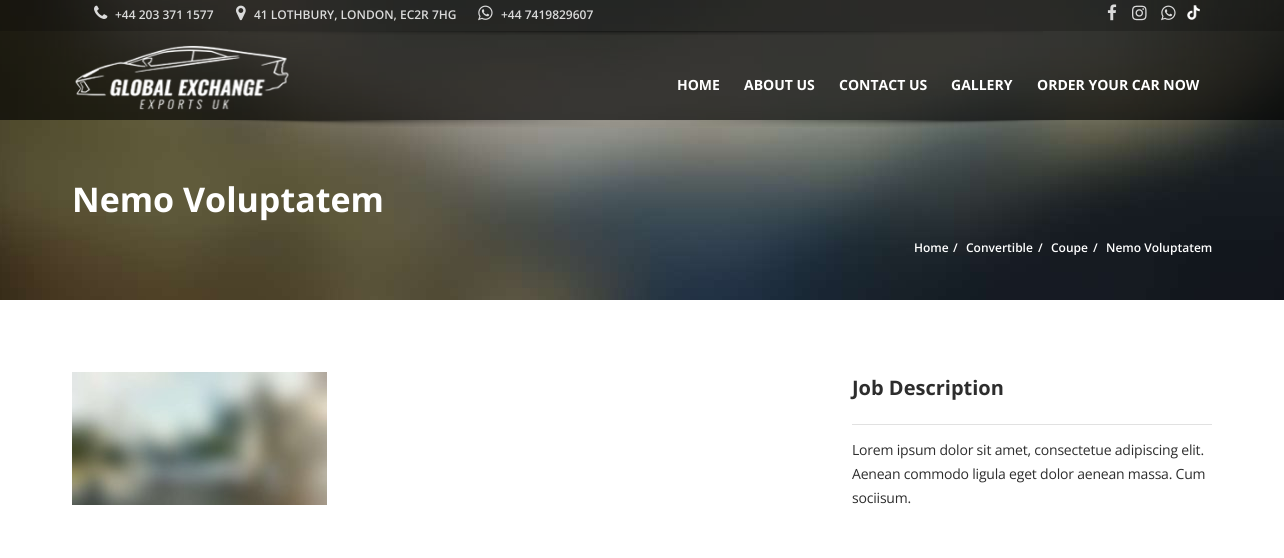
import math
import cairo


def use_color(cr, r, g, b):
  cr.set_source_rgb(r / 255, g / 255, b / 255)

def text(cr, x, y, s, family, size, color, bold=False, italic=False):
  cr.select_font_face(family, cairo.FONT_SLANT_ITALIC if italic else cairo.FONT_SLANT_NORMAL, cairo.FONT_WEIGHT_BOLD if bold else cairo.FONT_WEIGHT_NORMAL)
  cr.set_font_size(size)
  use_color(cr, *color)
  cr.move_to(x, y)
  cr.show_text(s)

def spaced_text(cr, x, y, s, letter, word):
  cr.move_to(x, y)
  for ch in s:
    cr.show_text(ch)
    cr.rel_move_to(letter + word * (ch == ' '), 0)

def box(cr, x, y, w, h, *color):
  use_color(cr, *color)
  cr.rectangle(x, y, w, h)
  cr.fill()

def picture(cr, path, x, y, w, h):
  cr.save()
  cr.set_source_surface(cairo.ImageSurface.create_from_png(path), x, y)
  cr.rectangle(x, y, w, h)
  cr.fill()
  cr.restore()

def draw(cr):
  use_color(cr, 255, 255, 255)
  cr.paint()
  picture(cr, "img_11.png", 0, 0, 1284, 300)
  cr.set_source_rgba(0, 0, 0, 0.65)
  cr.rectangle(0, 0, 1284, 120)
  cr.fill()
  cr.set_source_rgba(0, 0, 0, 0.2)
  cr.rectangle(0, 0, 1284, 31)
  cr.fill()
  picture(cr, "img_01.png", 94, 5, 14, 14)
  picture(cr, "img_02.png", 236, 5, 10, 16)
  picture(cr, "img_03.png", 478, 5, 15, 16)
  picture(cr, "img_04.png", 1107, 4, 10, 17)
  picture(cr, "img_05.png", 1132, 5, 15, 16)
  picture(cr, "img_06.png", 1161, 5, 15, 16)
  picture(cr, "img_07.png", 1187, 5, 13, 15)
  picture(cr, "img_08.png", 228, 31, 815, 4)
  picture(cr, "img_09.png", 75, 45, 214, 65)
  picture(cr, "img_10.png", 225, 120, 839, 7)
  picture(cr, "img_12.png", 72, 372, 255, 133)
  box(cr, 852, 424, 360, 1, 225, 225, 225)
  text(cr, 115, 19, "+44 203 371 1577", "Open Sans SemiBold", 12, (218, 218, 218))
  text(cr, 254, 19, "41 LOTHBURY, LONDON, EC2R 7HG", "Open Sans SemiBold", 12, (218, 218, 218))
  text(cr, 501, 19, "+44 7419829607", "Open Sans SemiBold", 12, (218, 218, 218))
  text(cr, 677, 90, "HOME", "Open Sans", 14, (255, 255, 255), bold=True)
  text(cr, 744, 90, "ABOUT US", "Open Sans", 14, (255, 255, 255), bold=True)
  text(cr, 839, 90, "CONTACT US", "Open Sans", 14, (255, 255, 255), bold=True)
  text(cr, 951, 90, "GALLERY", "Open Sans", 14, (255, 255, 255), bold=True)
  text(cr, 1037, 90, "ORDER YOUR CAR NOW", "Open Sans", 14, (255, 255, 255), bold=True)
  text(cr, 72, 212, "Nemo Voluptatem", "Open Sans", 34, (255, 255, 255), bold=True)
  text(cr, 914, 252, "Home", "Open Sans SemiBold", 12, (255, 255, 255))
  text(cr, 953, 252, "/", "Open Sans SemiBold", 12, (255, 255, 255))
  text(cr, 966, 252, "Convertible", "Open Sans SemiBold", 12, (255, 255, 255))
  text(cr, 1038, 252, "/", "Open Sans SemiBold", 12, (255, 255, 255))
  text(cr, 1051, 252, "Coupe", "Open Sans SemiBold", 12, (255, 255, 255))
  text(cr, 1093, 252, "/", "Open Sans SemiBold", 12, (255, 255, 255))
  text(cr, 1106, 252, "Nemo Voluptatem", "Open Sans SemiBold", 12, (255, 255, 255))
  text(cr, 852, 395, "Job Description", "Open Sans", 20, (45, 45, 45), bold=True)
  cr.select_font_face("Open Sans")
  cr.set_font_size(14)
  spaced_text(cr, 852, 455, "Lorem ipsum dolor sit amet, consectetue adipiscing elit.", -0.2, 0)
  spaced_text(cr, 852, 479, "Aenean commodo ligula eget dolor aenean massa. Cum", -0.2, 0)
  spaced_text(cr, 852, 503, "sociisum.", -0.2, 0)


surface = cairo.ImageSurface(cairo.FORMAT_RGB24, 1284, 558)
cr = cairo.Context(surface)
options = cairo.FontOptions()
options.set_hint_metrics(cairo.HINT_METRICS_OFF)
options.set_hint_style(cairo.HINT_STYLE_NONE)
cr.set_font_options(options)
cr.set_miter_limit(4)
draw(cr)
surface.write_to_png("out.png")
